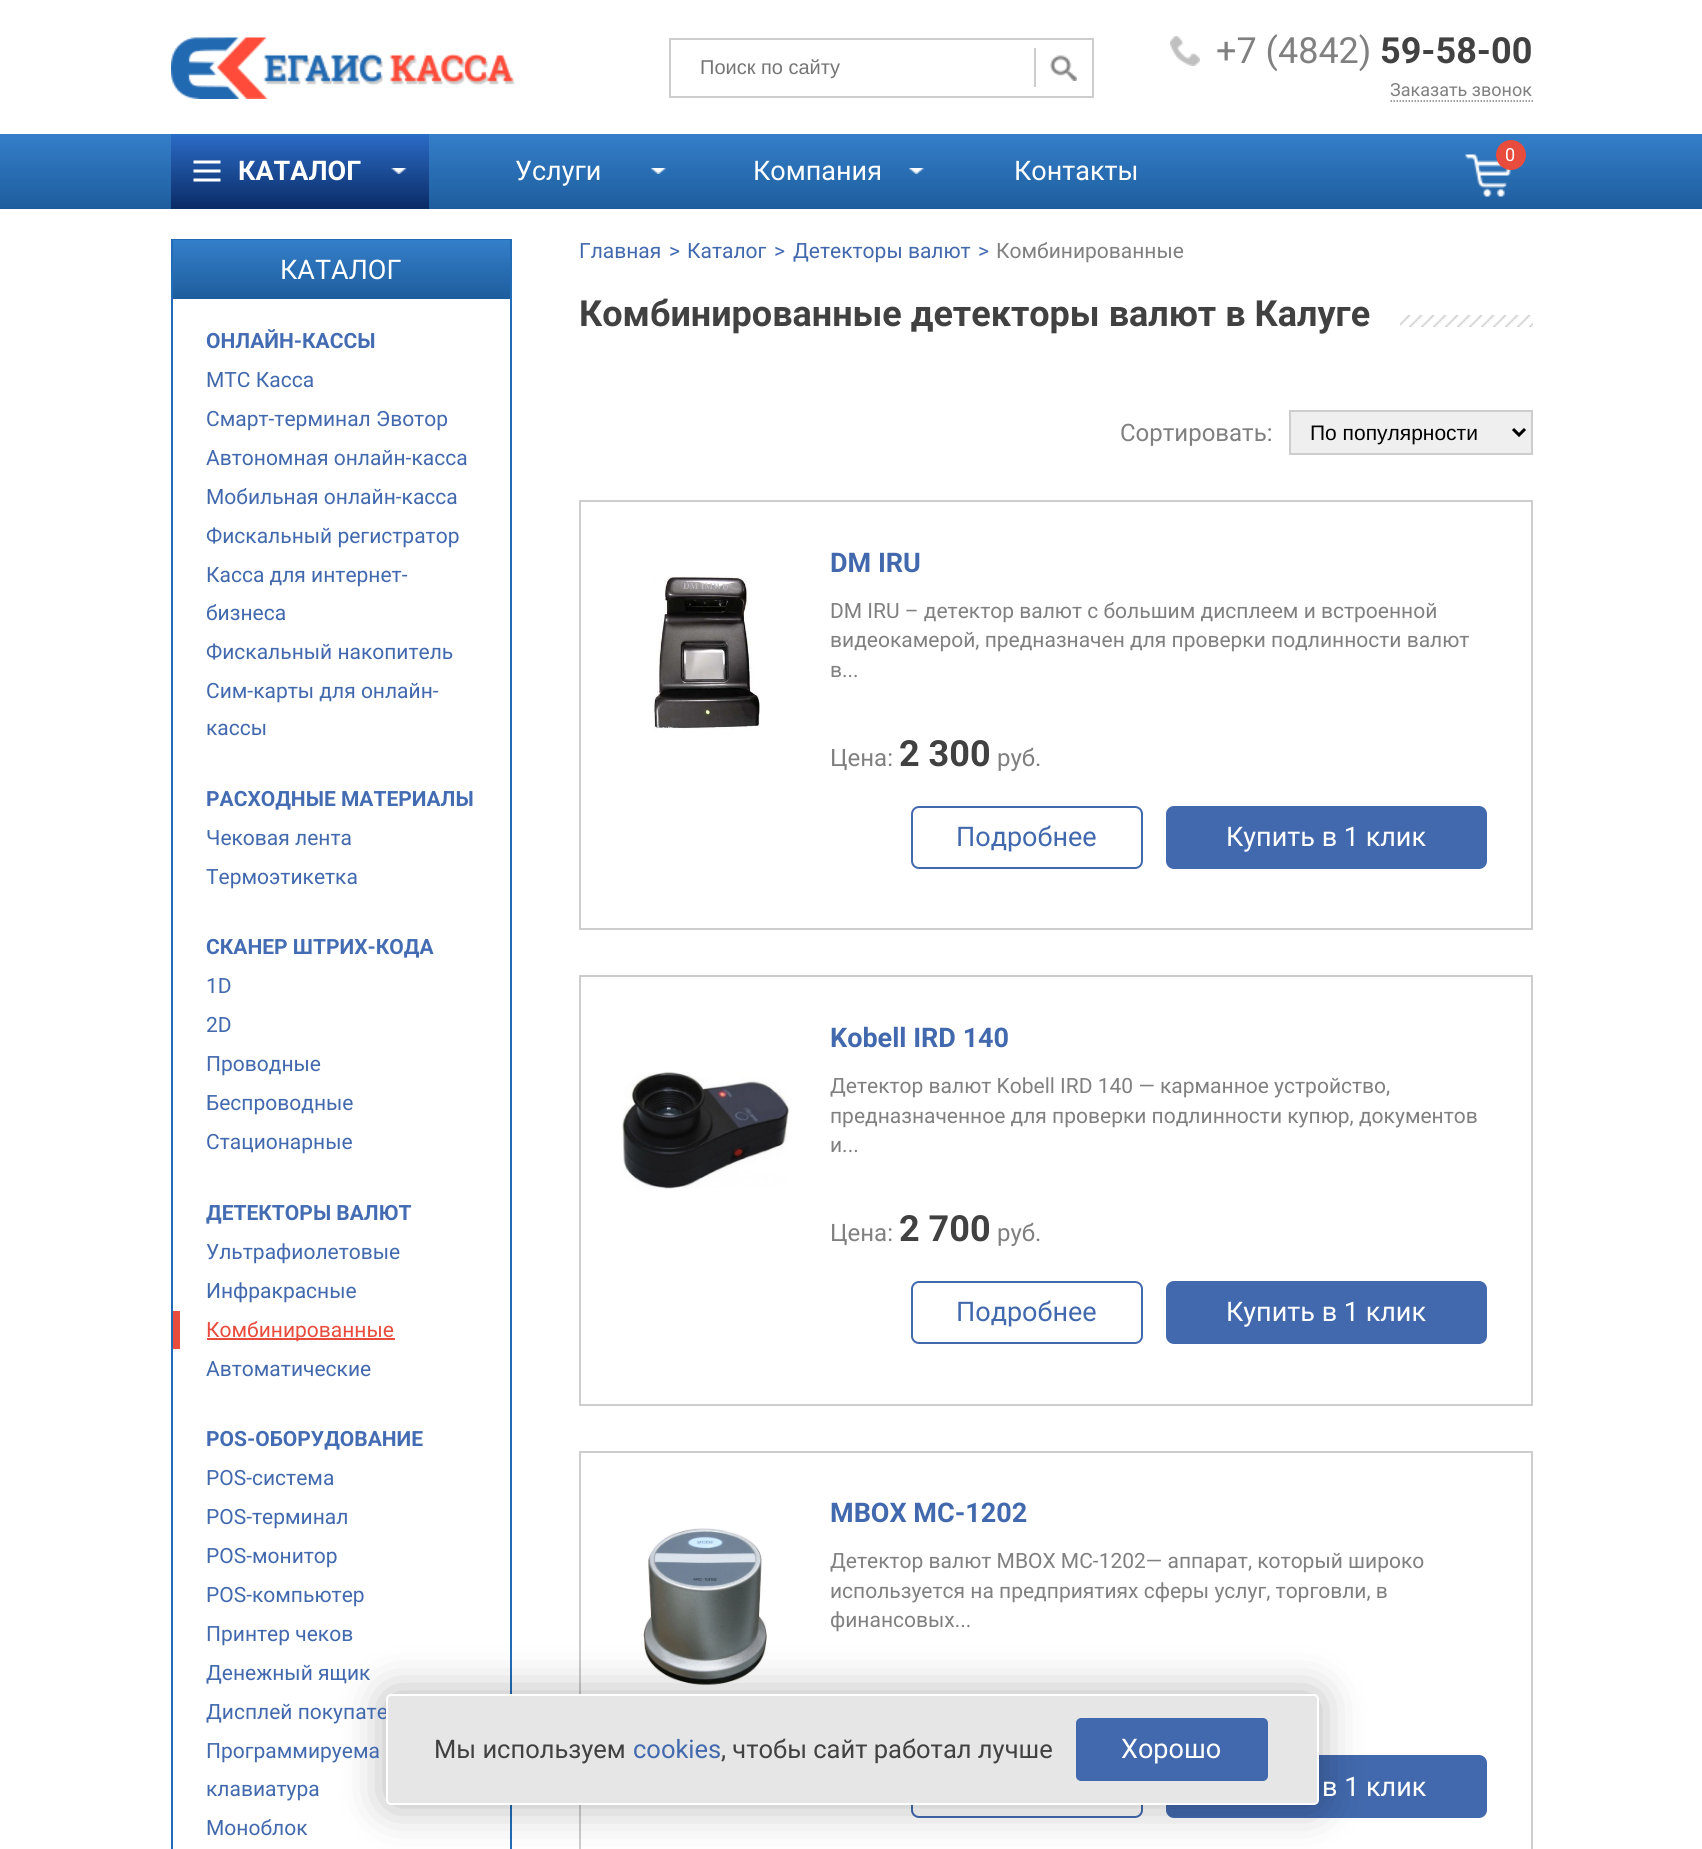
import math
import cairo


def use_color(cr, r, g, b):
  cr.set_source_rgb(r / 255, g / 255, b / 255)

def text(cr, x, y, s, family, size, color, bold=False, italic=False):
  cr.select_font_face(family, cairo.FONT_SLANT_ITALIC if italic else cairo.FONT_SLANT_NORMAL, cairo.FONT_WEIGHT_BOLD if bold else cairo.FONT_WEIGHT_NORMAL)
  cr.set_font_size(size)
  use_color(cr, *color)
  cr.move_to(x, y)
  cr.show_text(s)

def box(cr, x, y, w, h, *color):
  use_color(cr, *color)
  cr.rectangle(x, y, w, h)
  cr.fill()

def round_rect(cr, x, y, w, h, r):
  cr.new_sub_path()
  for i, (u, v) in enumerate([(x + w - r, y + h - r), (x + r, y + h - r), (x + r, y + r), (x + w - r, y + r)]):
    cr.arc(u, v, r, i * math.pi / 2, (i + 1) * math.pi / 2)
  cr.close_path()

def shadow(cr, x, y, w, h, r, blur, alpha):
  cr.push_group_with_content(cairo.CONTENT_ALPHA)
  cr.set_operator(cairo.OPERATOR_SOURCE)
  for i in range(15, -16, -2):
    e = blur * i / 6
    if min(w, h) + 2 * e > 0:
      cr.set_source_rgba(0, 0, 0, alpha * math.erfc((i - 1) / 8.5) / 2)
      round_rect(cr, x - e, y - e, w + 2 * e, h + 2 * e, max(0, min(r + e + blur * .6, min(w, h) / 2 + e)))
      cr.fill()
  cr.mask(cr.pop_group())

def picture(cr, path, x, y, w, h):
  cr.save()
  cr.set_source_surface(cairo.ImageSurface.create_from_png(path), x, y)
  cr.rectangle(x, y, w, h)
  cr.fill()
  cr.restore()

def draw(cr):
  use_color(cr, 255, 255, 255)
  cr.paint()
  picture(cr, "img_01.png", 171, 37, 344, 62)
  cr.rectangle(670, 39, 423, 58)
  use_color(cr, 205, 205, 205)
  cr.stroke()
  picture(cr, "img_02.png", 1050, 55, 27, 26)
  box(cr, 1034, 48, 2, 39, 205, 205, 205)
  picture(cr, "img_03.png", 1170, 36, 30, 30)
  cr.new_path()
  cr.move_to(1390.5, 101)
  cr.line_to(1533, 101)
  use_color(cr, 128, 128, 128)
  cr.set_line_width(1.5)
  cr.set_dash([1.5, 1.5])
  cr.stroke()
  gradient = cairo.LinearGradient(851, 209, 851, 134)
  gradient.add_color_stop_rgba(0, 0.118, 0.365, 0.616, 1)
  gradient.add_color_stop_rgba(1, 0.204, 0.498, 0.792, 1)
  cr.set_source(gradient)
  cr.rectangle(0, 134, 1702, 75)
  cr.fill()
  picture(cr, "img_04.png", 1465, 154, 46, 43)
  use_color(cr, 231, 76, 60)
  cr.arc(1511, 155, 15, 0, 2 * math.pi)
  cr.fill()
  gradient = cairo.LinearGradient(300, 209, 300, 134)
  gradient.add_color_stop_rgba(0, 0.043, 0.169, 0.4, 1)
  gradient.add_color_stop_rgba(1, 0.169, 0.424, 0.78, 1)
  cr.set_source(gradient)
  cr.rectangle(171, 134, 258, 75)
  cr.fill()
  picture(cr, "img_05.png", 193, 160, 28, 22)
  picture(cr, "img_06.png", 391, 168, 16, 6)
  picture(cr, "img_07.png", 651, 168, 15, 6)
  picture(cr, "img_07.png", 909, 168, 15, 6)
  cr.rectangle(172, 240, 339, 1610)
  use_color(cr, 34, 108, 183)
  cr.set_line_width(2)
  cr.set_dash([])
  cr.stroke()
  gradient = cairo.LinearGradient(341, 299, 341, 240)
  gradient.add_color_stop_rgba(0, 0.118, 0.365, 0.616, 1)
  gradient.add_color_stop_rgba(1, 0.204, 0.498, 0.792, 1)
  cr.set_source(gradient)
  cr.rectangle(173, 240, 337, 59)
  cr.fill()
  cr.save()
  cr.rectangle(173, 1311, 222, 38)
  cr.clip()
  use_color(cr, 231, 76, 60)
  cr.set_fill_rule(cairo.FILL_RULE_EVEN_ODD)
  cr.new_path()
  cr.move_to(24, 1162)
  cr.line_to(543, 1162)
  cr.line_to(543, 1497)
  cr.line_to(24, 1497)
  cr.close_path()
  cr.move_to(195, 1296)
  cr.line_to(417, 1296)
  cr.curve_to(425, 1296, 432, 1303, 432, 1311)
  cr.line_to(432, 1348)
  cr.curve_to(432, 1357, 425, 1364, 417, 1364)
  cr.line_to(195, 1364)
  cr.curve_to(187, 1364, 180, 1357, 180, 1348)
  cr.line_to(180, 1311)
  cr.curve_to(180, 1303, 187, 1296, 195, 1296)
  cr.close_path()
  cr.fill()
  cr.restore()
  box(cr, 207, 1338, 188, 2, 231, 76, 60)
  picture(cr, "img_08.png", 1400, 315, 133, 12)
  use_color(cr, 239, 239, 239)
  cr.rectangle(1290, 411, 242, 43)
  cr.fill_preserve()
  use_color(cr, 205, 205, 205)
  cr.stroke()
  cr.new_path()
  cr.move_to(1513, 429)
  cr.line_to(1519, 435)
  cr.line_to(1525, 429)
  use_color(cr, 0, 0, 0)
  cr.set_line_width(3)
  cr.stroke()
  cr.rectangle(580, 501, 952, 428)
  use_color(cr, 205, 205, 205)
  cr.set_line_width(2)
  cr.stroke()
  picture(cr, "img_09.png", 653, 576, 107, 154)
  round_rect(cr, 912, 807, 230, 61, 7)
  use_color(cr, 66, 105, 173)
  cr.stroke()
  round_rect(cr, 1167, 807, 319, 61, 7)
  cr.fill_preserve()
  cr.stroke()
  cr.rectangle(580, 976, 952, 429)
  use_color(cr, 205, 205, 205)
  cr.stroke()
  picture(cr, "img_10.png", 622, 1071, 167, 118)
  round_rect(cr, 912, 1282, 230, 61, 7)
  use_color(cr, 66, 105, 173)
  cr.stroke()
  round_rect(cr, 1167, 1282, 319, 61, 7)
  cr.fill_preserve()
  cr.stroke()
  cr.rectangle(580, 1452, 952, 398)
  use_color(cr, 205, 205, 205)
  cr.stroke()
  picture(cr, "img_11.png", 643, 1528, 124, 157)
  round_rect(cr, 912, 1756, 230, 61, 7)
  use_color(cr, 66, 105, 173)
  cr.stroke()
  round_rect(cr, 1167, 1756, 319, 61, 7)
  cr.fill_preserve()
  cr.stroke()
  use_color(cr, 0, 0, 0)
  shadow(cr, 386, 1694, 933, 111, 5, 22.5, 0.3)
  text(cr, 700, 74, "Поиск по сайту", "Liberation Sans", 20, (117, 117, 117))
  text(cr, 1216, 63, "+7 (4842)", "Roboto", 36, (128, 128, 128))
  text(cr, 1380, 63, "59-58-00", "Roboto", 36, (65, 65, 65), bold=True)
  text(cr, 1390, 96, "Заказать звонок", "Roboto", 18, (128, 128, 128))
  text(cr, 1505, 161, "0", "Roboto", 18, (255, 255, 255))
  text(cr, 238, 180, "КАТАЛОГ", "Roboto", 27, (255, 255, 255), bold=True)
  text(cr, 515, 180, "Услуги", "Roboto", 27, (255, 255, 255))
  text(cr, 753, 180, "Компания", "Roboto", 27, (255, 255, 255))
  text(cr, 1014, 180, "Контакты", "Roboto", 27, (255, 255, 255))
  text(cr, 280, 279, "КАТАЛОГ", "Roboto", 27, (255, 255, 255))
  text(cr, 206, 348, "ОНЛАЙН-КАССЫ", "Roboto", 21, (68, 108, 179), bold=True)
  text(cr, 206, 387, "МТС Касса", "Roboto", 21, (66, 105, 173))
  text(cr, 206, 426, "Смарт-терминал Эвотор", "Roboto", 21, (66, 105, 173))
  text(cr, 206, 465, "Автономная онлайн-касса", "Roboto", 21, (66, 105, 173))
  text(cr, 206, 504, "Мобильная онлайн-касса", "Roboto", 21, (66, 105, 173))
  text(cr, 206, 543, "Фискальный регистратор", "Roboto", 21, (66, 105, 173))
  text(cr, 206, 582, "Касса для интернет-", "Roboto", 21, (66, 105, 173))
  text(cr, 206, 620, "бизнеса", "Roboto", 21, (66, 105, 173))
  text(cr, 206, 659, "Фискальный накопитель", "Roboto", 21, (66, 105, 173))
  text(cr, 206, 698, "Сим-карты для онлайн-", "Roboto", 21, (66, 105, 173))
  text(cr, 206, 735, "кассы", "Roboto", 21, (66, 105, 173))
  text(cr, 206, 806, "РАСХОДНЫЕ МАТЕРИАЛЫ", "Roboto", 21, (68, 108, 179), bold=True)
  text(cr, 206, 845, "Чековая лента", "Roboto", 21, (66, 105, 173))
  text(cr, 206, 884, "Термоэтикетка", "Roboto", 21, (66, 105, 173))
  text(cr, 206, 954, "СКАНЕР ШТРИХ-КОДА", "Roboto", 21, (68, 108, 179), bold=True)
  text(cr, 206, 993, "1D", "Roboto", 21, (66, 105, 173))
  text(cr, 206, 1032, "2D", "Roboto", 21, (66, 105, 173))
  text(cr, 206, 1071, "Проводные", "Roboto", 21, (66, 105, 173))
  text(cr, 206, 1110, "Беспроводные", "Roboto", 21, (66, 105, 173))
  text(cr, 206, 1149, "Стационарные", "Roboto", 21, (66, 105, 173))
  text(cr, 206, 1220, "ДЕТЕКТОРЫ ВАЛЮТ", "Roboto", 21, (68, 108, 179), bold=True)
  text(cr, 206, 1259, "Ультрафиолетовые", "Roboto", 21, (66, 105, 173))
  text(cr, 206, 1298, "Инфракрасные", "Roboto", 21, (66, 105, 173))
  text(cr, 206, 1337, "Комбинированные", "Roboto", 21, (231, 76, 60))
  text(cr, 206, 1376, "Автоматические", "Roboto", 21, (66, 105, 173))
  text(cr, 206, 1446, "POS-ОБОРУДОВАНИЕ", "Roboto", 21, (68, 108, 179), bold=True)
  text(cr, 206, 1485, "POS-система", "Roboto", 21, (66, 105, 173))
  text(cr, 206, 1524, "POS-терминал", "Roboto", 21, (66, 105, 173))
  text(cr, 206, 1563, "POS-монитор", "Roboto", 21, (66, 105, 173))
  text(cr, 206, 1602, "POS-компьютер", "Roboto", 21, (66, 105, 173))
  text(cr, 206, 1641, "Принтер чеков", "Roboto", 21, (66, 105, 173))
  text(cr, 206, 1680, "Денежный ящик", "Roboto", 21, (66, 105, 173))
  text(cr, 206, 1719, "Дисплей покупате", "Roboto", 21, (66, 105, 173))
  text(cr, 206, 1758, "Программируема", "Roboto", 21, (66, 105, 173))
  text(cr, 206, 1796, "клавиатура", "Roboto", 21, (66, 105, 173))
  text(cr, 206, 1835, "Моноблок", "Roboto", 21, (66, 105, 173))
  text(cr, 579, 258, "Главная", "Roboto", 21, (66, 105, 173))
  text(cr, 669, 258, ">", "Roboto", 21, (68, 108, 179))
  text(cr, 687, 258, "Каталог", "Roboto", 21, (66, 105, 173))
  text(cr, 774, 258, ">", "Roboto", 21, (68, 108, 179))
  text(cr, 793, 258, "Детекторы валют", "Roboto", 21, (66, 105, 173))
  text(cr, 978, 258, ">", "Roboto", 21, (68, 108, 179))
  text(cr, 996, 258, "Комбинированные", "Roboto", 21, (128, 128, 128))
  text(cr, 579, 326, "Комбинированные детекторы валют в Калуге", "Roboto", 36, (65, 65, 65), bold=True)
  text(cr, 1120, 441, "Сортировать:", "Roboto", 24, (128, 128, 128))
  text(cr, 1310, 440, "По популярности", "Liberation Sans", 21, (0, 0, 0))
  text(cr, 830, 572, "DM IRU", "Roboto", 27, (66, 105, 173), bold=True)
  text(cr, 830, 618, "DM IRU – детектор валют с большим дисплеем и встроенной", "Roboto", 21, (128, 128, 128))
  text(cr, 830, 647, "видеокамерой, предназначен для проверки подлинности валют", "Roboto", 21, (128, 128, 128))
  text(cr, 830, 677, "в...", "Roboto", 21, (128, 128, 128))
  text(cr, 830, 766, "Цена:", "Roboto", 24, (128, 128, 128))
  text(cr, 899, 766, "2 300", "Roboto", 36, (65, 65, 65), bold=True)
  text(cr, 997, 766, "руб.", "Roboto", 24, (128, 128, 128))
  text(cr, 956, 846, "Подробнее", "Roboto", 27, (66, 105, 173))
  text(cr, 1226, 846, "Купить в 1 клик", "Roboto", 27, (255, 255, 255))
  text(cr, 830, 1047, "Kobell IRD 140", "Roboto", 27, (66, 105, 173), bold=True)
  text(cr, 830, 1093, "Детектор валют Kobell IRD 140 — карманное устройство,", "Roboto", 21, (128, 128, 128))
  text(cr, 830, 1123, "предназначенное для проверки подлинности купюр, документов", "Roboto", 21, (128, 128, 128))
  text(cr, 830, 1152, "и...", "Roboto", 21, (128, 128, 128))
  text(cr, 830, 1241, "Цена:", "Roboto", 24, (128, 128, 128))
  text(cr, 899, 1241, "2 700", "Roboto", 36, (65, 65, 65), bold=True)
  text(cr, 997, 1241, "руб.", "Roboto", 24, (128, 128, 128))
  text(cr, 956, 1321, "Подробнее", "Roboto", 27, (66, 105, 173))
  text(cr, 1226, 1321, "Купить в 1 клик", "Roboto", 27, (255, 255, 255))
  text(cr, 830, 1522, "MBOX MC-1202", "Roboto", 27, (66, 105, 173), bold=True)
  text(cr, 830, 1568, "Детектор валют MBOX МС-1202— аппарат, который широко", "Roboto", 21, (128, 128, 128))
  text(cr, 830, 1598, "используется на предприятиях сферы услуг, торговли, в", "Roboto", 21, (128, 128, 128))
  text(cr, 830, 1627, "финансовых...", "Roboto", 21, (128, 128, 128))
  text(cr, 1322, 1796, "в 1 клик", "Roboto", 27, (255, 255, 255))
  use_color(cr, 230, 230, 230)
  round_rect(cr, 387, 1695, 931, 109, 4)
  cr.fill_preserve()
  use_color(cr, 255, 255, 255)
  cr.stroke()
  text(cr, 434, 1758, "Мы используем", "Roboto", 25.5, (65, 65, 65))
  text(cr, 633, 1758, "cookies", "Roboto", 25.5, (66, 105, 173))
  text(cr, 721, 1758, ", чтобы сайт работал лучше", "Roboto", 25.5, (65, 65, 65))
  use_color(cr, 66, 105, 173)
  round_rect(cr, 1077, 1719, 190, 61, 4)
  cr.fill_preserve()
  cr.stroke()
  text(cr, 1121, 1758, "Хорошо", "Roboto", 27, (255, 255, 255))


surface = cairo.ImageSurface(cairo.FORMAT_RGB24, 1702, 1849)
cr = cairo.Context(surface)
options = cairo.FontOptions()
options.set_hint_metrics(cairo.HINT_METRICS_OFF)
options.set_hint_style(cairo.HINT_STYLE_NONE)
cr.set_font_options(options)
cr.set_miter_limit(4)
draw(cr)
surface.write_to_png("out.png")
